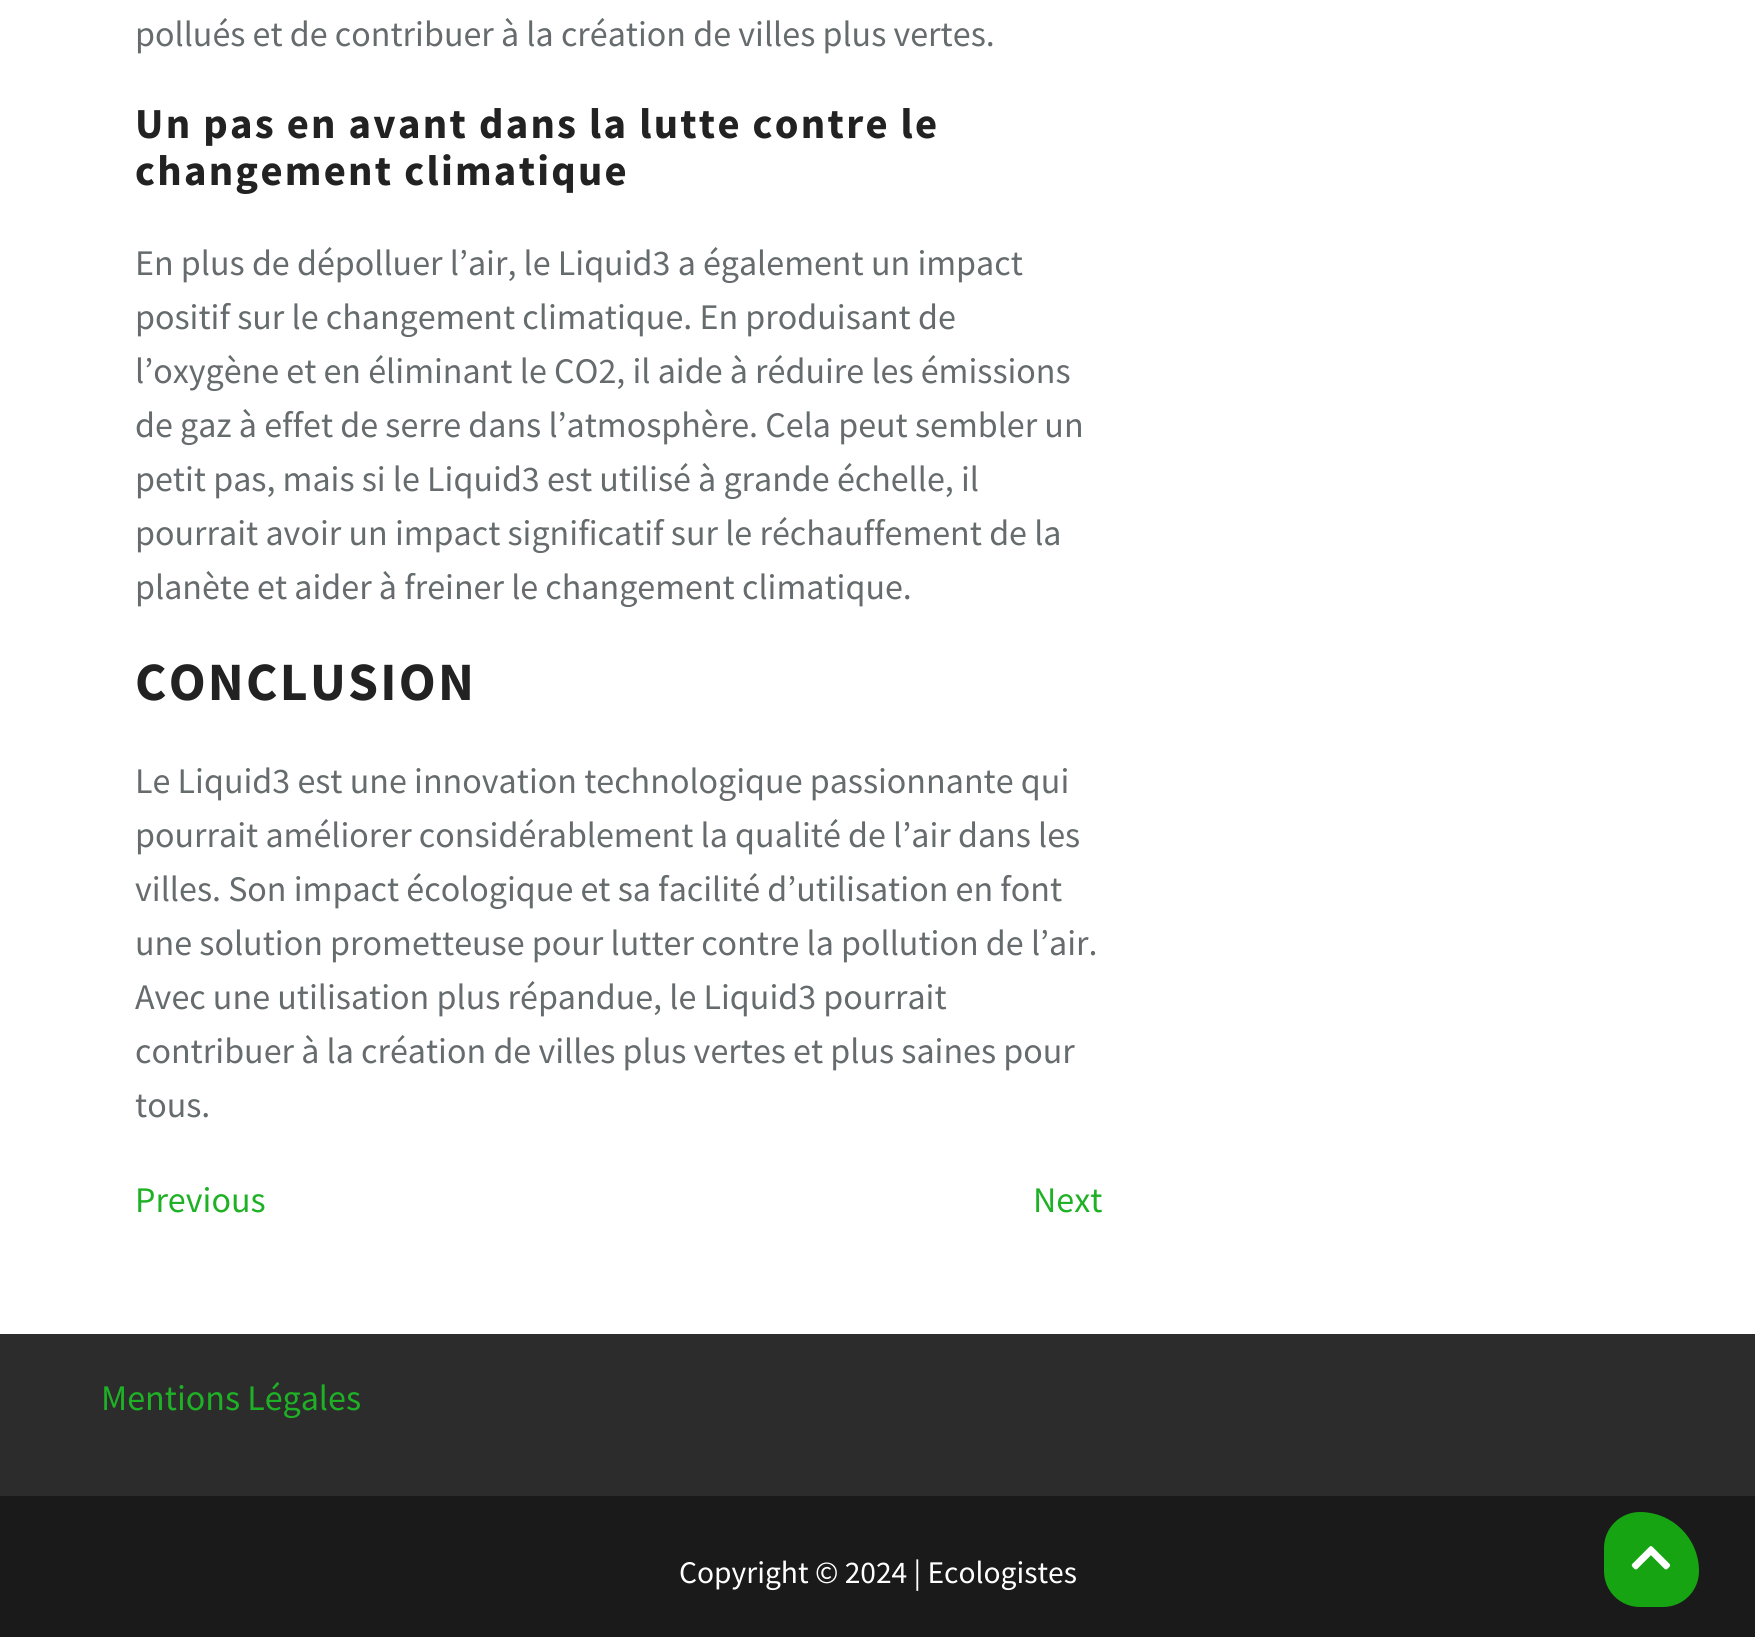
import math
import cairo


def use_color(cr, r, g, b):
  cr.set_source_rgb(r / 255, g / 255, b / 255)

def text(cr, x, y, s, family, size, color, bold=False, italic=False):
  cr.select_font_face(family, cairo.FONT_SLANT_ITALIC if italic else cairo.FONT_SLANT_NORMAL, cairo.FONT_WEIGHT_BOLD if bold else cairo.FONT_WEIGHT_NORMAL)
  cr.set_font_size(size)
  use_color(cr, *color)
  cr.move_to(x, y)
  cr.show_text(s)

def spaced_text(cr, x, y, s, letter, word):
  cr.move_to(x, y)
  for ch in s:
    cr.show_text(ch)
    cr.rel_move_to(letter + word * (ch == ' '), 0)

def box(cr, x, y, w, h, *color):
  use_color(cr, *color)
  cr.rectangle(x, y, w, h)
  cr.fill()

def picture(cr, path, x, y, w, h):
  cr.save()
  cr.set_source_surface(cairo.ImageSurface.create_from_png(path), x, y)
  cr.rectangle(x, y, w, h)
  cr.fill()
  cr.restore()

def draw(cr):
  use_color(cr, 255, 255, 255)
  cr.paint()
  box(cr, 0, 1334, 1755, 162, 44, 44, 44)
  box(cr, 0, 1496, 1755, 141, 26, 26, 26)
  use_color(cr, 22, 164, 18)
  cr.new_path()
  cr.move_to(1640, 1512)
  cr.curve_to(1672.5, 1512, 1699, 1538.5, 1699, 1571)
  cr.curve_to(1699, 1591, 1683, 1607, 1663, 1607)
  cr.line_to(1640, 1607)
  cr.curve_to(1620, 1607, 1604, 1591, 1604, 1571)
  cr.line_to(1604, 1548)
  cr.curve_to(1604, 1528, 1620, 1512, 1640, 1512)
  cr.close_path()
  cr.fill()
  picture(cr, "img_01.png", 1631, 1546, 40, 24)
  text(cr, 135, 46, "pollués et de contribuer à la création de villes plus vertes.", "Source Sans Pro", 36, (102, 108, 110))
  cr.select_font_face("Source Sans Pro", cairo.FONT_SLANT_NORMAL, cairo.FONT_WEIGHT_BOLD)
  cr.set_font_size(42.75)
  use_color(cr, 34, 34, 34)
  spaced_text(cr, 135, 138, "Un pas en avant dans la lutte contre le", 2.25, 0)
  spaced_text(cr, 135, 185, "changement climatique", 2.25, 0)
  text(cr, 135, 275, "En plus de dépolluer l’air, le Liquid3 a également un impact", "Source Sans Pro", 36, (102, 108, 110))
  text(cr, 135, 329, "positif sur le changement climatique. En produisant de", "Source Sans Pro", 36, (102, 108, 110))
  text(cr, 135, 383, "l’oxygène et en éliminant le CO2, il aide à réduire les émissions", "Source Sans Pro", 36, (102, 108, 110))
  text(cr, 135, 437, "de gaz à effet de serre dans l’atmosphère. Cela peut sembler un", "Source Sans Pro", 36, (102, 108, 110))
  text(cr, 135, 491, "petit pas, mais si le Liquid3 est utilisé à grande échelle, il", "Source Sans Pro", 36, (102, 108, 110))
  text(cr, 135, 545, "pourrait avoir un impact significatif sur le réchauffement de la", "Source Sans Pro", 36, (102, 108, 110))
  text(cr, 135, 599, "planète et aider à freiner le changement climatique.", "Source Sans Pro", 36, (102, 108, 110))
  cr.select_font_face("Source Sans Pro", cairo.FONT_SLANT_NORMAL, cairo.FONT_WEIGHT_BOLD)
  cr.set_font_size(54)
  use_color(cr, 34, 34, 34)
  spaced_text(cr, 135, 700, "CONCLUSION", 2.25, 0)
  text(cr, 135, 793, "Le Liquid3 est une innovation technologique passionnante qui", "Source Sans Pro", 36, (102, 108, 110))
  text(cr, 135, 847, "pourrait améliorer considérablement la qualité de l’air dans les", "Source Sans Pro", 36, (102, 108, 110))
  text(cr, 135, 901, "villes. Son impact écologique et sa facilité d’utilisation en font", "Source Sans Pro", 36, (102, 108, 110))
  text(cr, 135, 955, "une solution prometteuse pour lutter contre la pollution de l’air.", "Source Sans Pro", 36, (102, 108, 110))
  text(cr, 135, 1009, "Avec une utilisation plus répandue, le Liquid3 pourrait", "Source Sans Pro", 36, (102, 108, 110))
  text(cr, 135, 1063, "contribuer à la création de villes plus vertes et plus saines pour", "Source Sans Pro", 36, (102, 108, 110))
  text(cr, 135, 1117, "tous.", "Source Sans Pro", 36, (102, 108, 110))
  text(cr, 135, 1212, "Previous", "Source Sans Pro", 36, (31, 177, 37))
  text(cr, 1033, 1212, "Next", "Source Sans Pro", 36, (31, 177, 37))
  text(cr, 101, 1410, "Mentions Légales", "Source Sans Pro", 36, (31, 177, 37))
  text(cr, 679, 1583, "Copyright © 2024 | Ecologistes", "Source Sans Pro", 31.5, (255, 255, 255))


surface = cairo.ImageSurface(cairo.FORMAT_RGB24, 1755, 1637)
cr = cairo.Context(surface)
options = cairo.FontOptions()
options.set_hint_metrics(cairo.HINT_METRICS_OFF)
options.set_hint_style(cairo.HINT_STYLE_NONE)
cr.set_font_options(options)
cr.set_miter_limit(4)
draw(cr)
surface.write_to_png("out.png")
